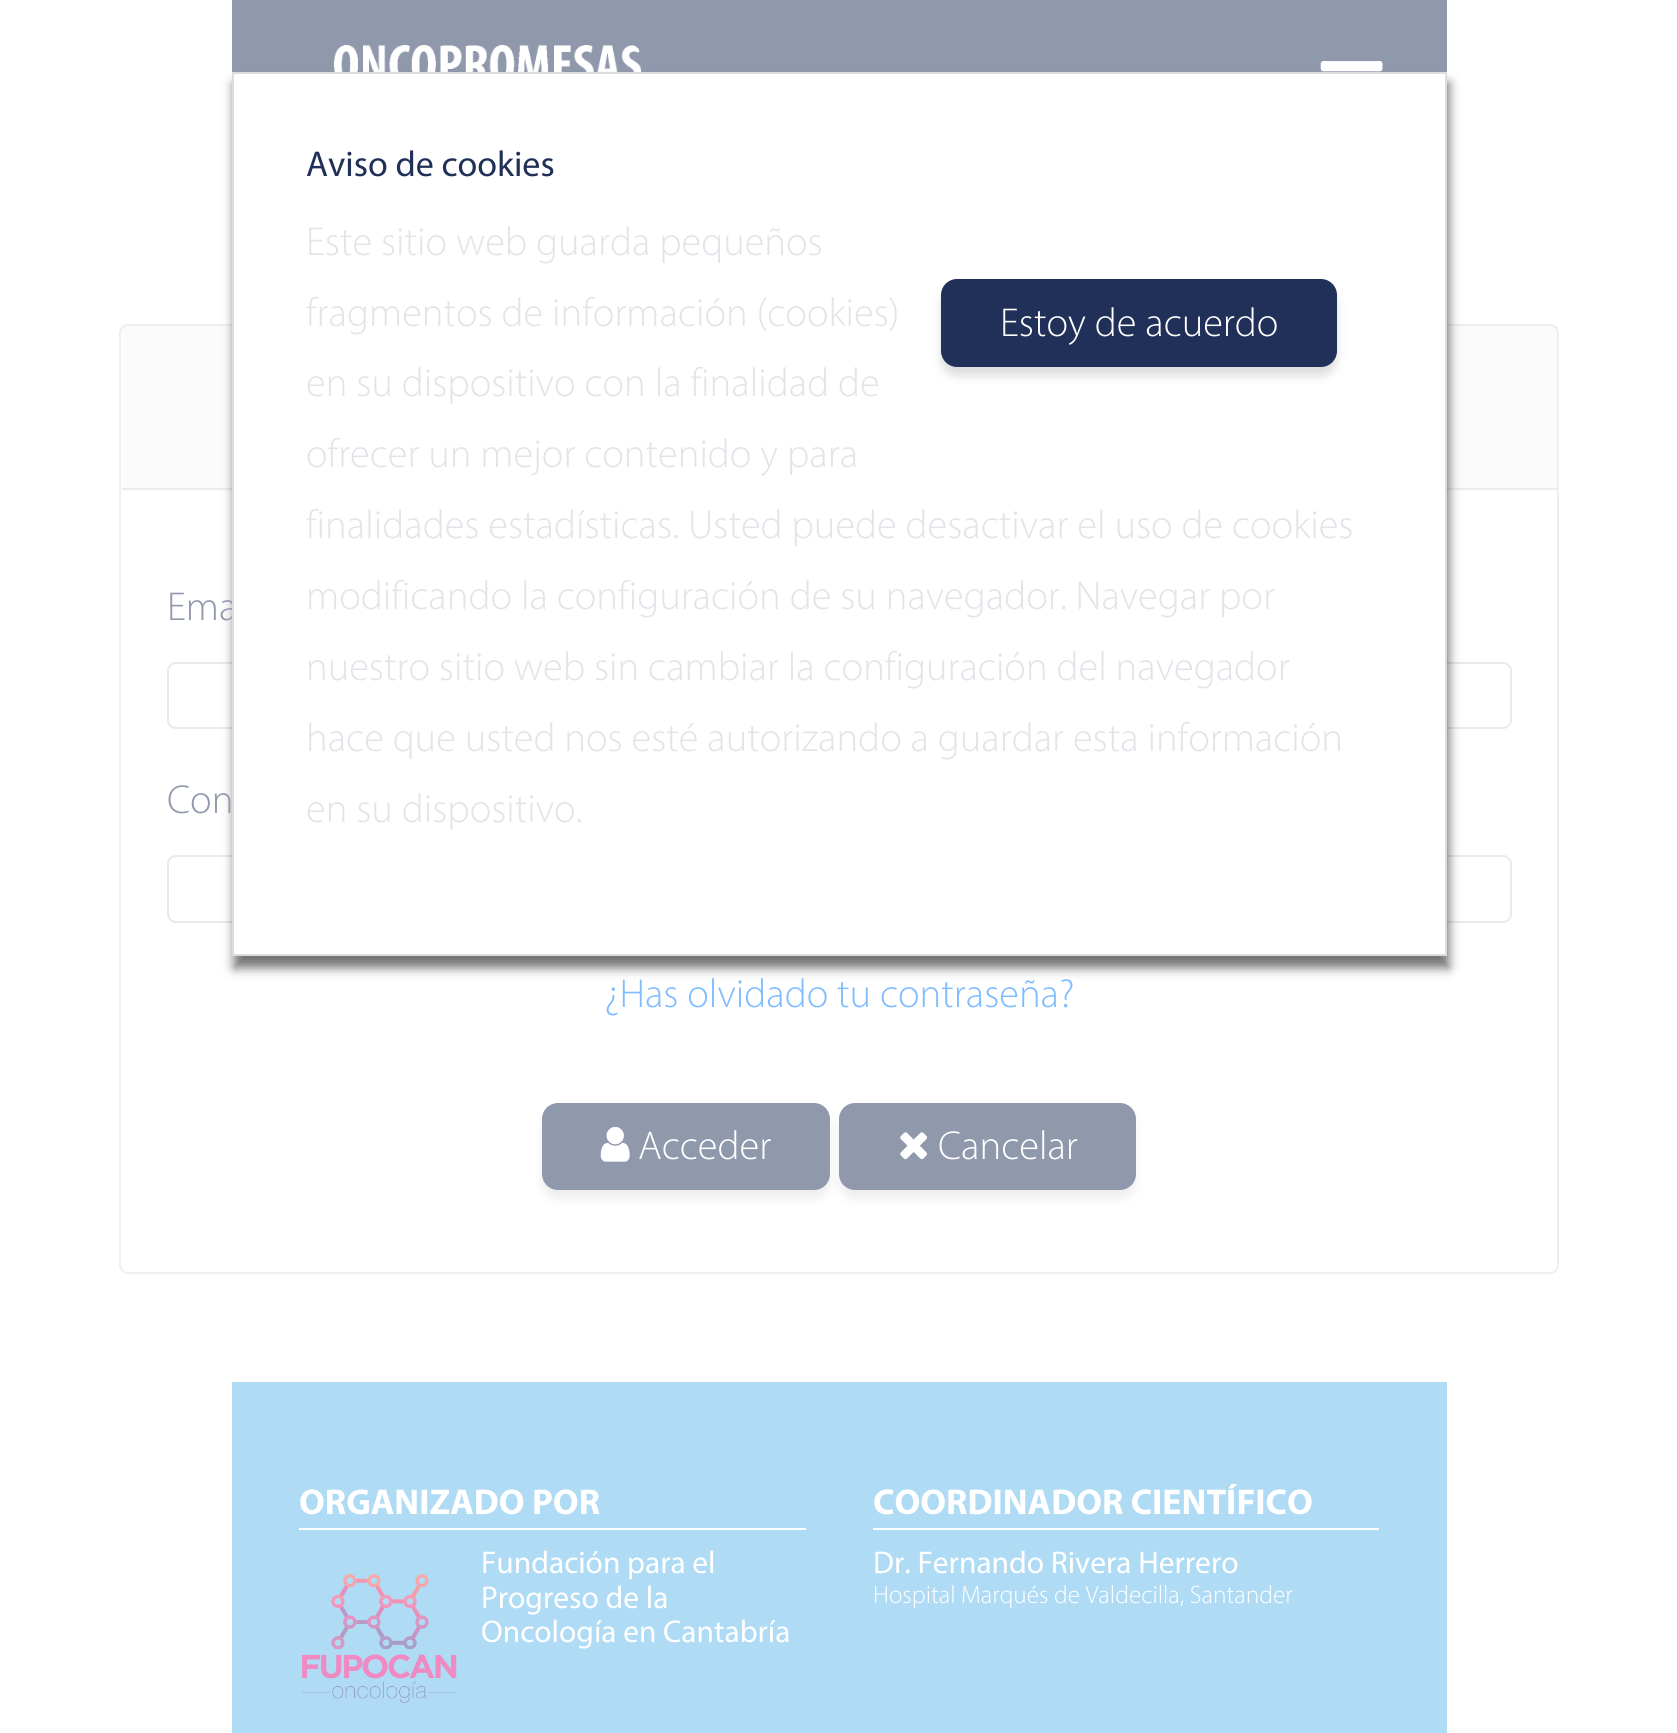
import math
import cairo


def use_color(cr, r, g, b):
  cr.set_source_rgb(r / 255, g / 255, b / 255)

def text(cr, x, y, s, family, size, color, bold=False, italic=False):
  cr.select_font_face(family, cairo.FONT_SLANT_ITALIC if italic else cairo.FONT_SLANT_NORMAL, cairo.FONT_WEIGHT_BOLD if bold else cairo.FONT_WEIGHT_NORMAL)
  cr.set_font_size(size)
  use_color(cr, *color)
  cr.move_to(x, y)
  cr.show_text(s)

def box(cr, x, y, w, h, *color):
  use_color(cr, *color)
  cr.rectangle(x, y, w, h)
  cr.fill()

def round_rect(cr, x, y, w, h, r):
  cr.new_sub_path()
  for i, (u, v) in enumerate([(x + w - r, y + h - r), (x + r, y + h - r), (x + r, y + r), (x + w - r, y + r)]):
    cr.arc(u, v, r, i * math.pi / 2, (i + 1) * math.pi / 2)
  cr.close_path()

def shadow(cr, x, y, w, h, r, blur, alpha):
  cr.push_group_with_content(cairo.CONTENT_ALPHA)
  cr.set_operator(cairo.OPERATOR_SOURCE)
  for i in range(15, -16, -2):
    e = blur * i / 6
    if min(w, h) + 2 * e > 0:
      cr.set_source_rgba(0, 0, 0, alpha * math.erfc((i - 1) / 8.5) / 2)
      round_rect(cr, x - e, y - e, w + 2 * e, h + 2 * e, max(0, min(r + e + blur * .6, min(w, h) / 2 + e)))
      cr.fill()
  cr.mask(cr.pop_group())

def picture(cr, path, x, y, w, h):
  cr.save()
  cr.set_source_surface(cairo.ImageSurface.create_from_png(path), x, y)
  cr.rectangle(x, y, w, h)
  cr.fill()
  cr.restore()

def draw(cr):
  use_color(cr, 255, 255, 255)
  cr.paint()
  box(cr, 232, 0, 1215, 72, 144, 152, 172)
  picture(cr, "img_01.png", 333, 45, 309, 27)
  picture(cr, "img_02.png", 1320, 61, 63, 11)
  round_rect(cr, 120, 325, 1438, 948, 8)
  use_color(cr, 239, 239, 239)
  cr.stroke()
  cr.set_source_rgba(0.502, 0.502, 0.502, 0.03)
  cr.rectangle(122, 326, 1435, 165)
  cr.fill()
  box(cr, 122, 488, 1435, 2, 236, 236, 236)
  round_rect(cr, 168, 663, 1343, 65, 8)
  use_color(cr, 231, 234, 237)
  cr.stroke()
  round_rect(cr, 168, 856, 1343, 66, 8)
  cr.stroke()
  use_color(cr, 0, 0, 0)
  shadow(cr, 234, 83, 1215, 885, 0, 5.5, 0.55)
  use_color(cr, 238, 238, 238)
  shadow(cr, 542, 1112, 288, 87, 16, 4.5, 1)
  use_color(cr, 144, 152, 172)
  round_rect(cr, 543, 1104, 286, 85, 15)
  cr.fill_preserve()
  cr.stroke()
  picture(cr, "img_03.png", 600, 1126, 30, 36)
  use_color(cr, 238, 238, 238)
  shadow(cr, 839, 1112, 297, 87, 16, 4.5, 1)
  use_color(cr, 144, 152, 172)
  round_rect(cr, 840, 1104, 295, 85, 15)
  cr.fill_preserve()
  cr.stroke()
  picture(cr, "img_04.png", 900, 1132, 28, 28)
  box(cr, 232, 1382, 1215, 351, 175, 219, 245)
  box(cr, 299, 1528, 507, 2, 255, 255, 255)
  picture(cr, "img_05.png", 302, 1574, 155, 129)
  box(cr, 873, 1528, 506, 2, 255, 255, 255)
  text(cr, 167, 620, "Ema", "Myriad Light", 40.5, (144, 152, 172))
  use_color(cr, 255, 255, 255)
  cr.rectangle(233, 73, 1213, 882)
  cr.fill_preserve()
  use_color(cr, 221, 221, 221)
  cr.stroke()
  text(cr, 306, 822, "en su dispositivo.", "Myriad Light", 40.5, (226, 228, 233))
  text(cr, 306, 751, "hace que usted nos esté autorizando a guardar esta información", "Myriad Light", 40.5, (226, 228, 233))
  text(cr, 306, 680, "nuestro sitio web sin cambiar la configuración del navegador", "Myriad Light", 40.5, (226, 228, 233))
  text(cr, 306, 609, "modificando la configuración de su navegador. Navegar por", "Myriad Light", 40.5, (226, 228, 233))
  text(cr, 306, 538, "finalidades estadísticas. Usted puede desactivar el uso de cookies", "Myriad Light", 40.5, (226, 228, 233))
  text(cr, 306, 467, "ofrecer un mejor contenido y para", "Myriad Light", 40.5, (226, 228, 233))
  text(cr, 306, 396, "en su dispositivo con la finalidad de", "Myriad Light", 40.5, (226, 228, 233))
  text(cr, 306, 326, "fragmentos de información (cookies)", "Myriad Light", 40.5, (226, 228, 233))
  text(cr, 306, 255, "Este sitio web guarda pequeños", "Myriad Light", 40.5, (226, 228, 233))
  text(cr, 306, 176, "Aviso de cookies", "Myriad", 36, (33, 48, 88))
  use_color(cr, 221, 221, 221)
  shadow(cr, 941, 288, 396, 88, 16, 4.5, 1)
  use_color(cr, 33, 48, 88)
  round_rect(cr, 942, 280, 394, 86, 15)
  cr.fill_preserve()
  cr.stroke()
  text(cr, 1000, 336, "Estoy de acuerdo", "Myriad Light", 40.5, (255, 255, 255))
  text(cr, 167, 813, "Con", "Myriad Light", 40.5, (144, 152, 172))
  text(cr, 604, 1007, "¿Has olvidado tu contraseña?", "Myriad Light", 40.5, (128, 189, 255))
  text(cr, 638, 1159, "Acceder", "Myriad Light", 40.5, (255, 255, 255))
  text(cr, 938, 1159, "Cancelar", "Myriad Light", 40.5, (255, 255, 255))
  text(cr, 299, 1514, "ORGANIZADO POR", "Myriad", 36, (255, 255, 255), bold=True)
  text(cr, 481, 1573, "Fundación para el", "Myriad", 31.5, (255, 255, 255))
  text(cr, 481, 1608, "Progreso de la", "Myriad", 31.5, (255, 255, 255))
  text(cr, 481, 1642, "Oncología en Cantabría", "Myriad", 31.5, (255, 255, 255))
  text(cr, 873, 1514, "COORDINADOR CIENTÍFICO", "Myriad", 36, (255, 255, 255), bold=True)
  text(cr, 873, 1573, "Dr. Fernando Rivera Herrero", "Myriad", 31.5, (255, 255, 255))
  text(cr, 873, 1603, "Hospital Marqués de Valdecilla, Santander", "Myriad Light", 25.25, (255, 255, 255))


surface = cairo.ImageSurface(cairo.FORMAT_RGB24, 1677, 1733)
cr = cairo.Context(surface)
options = cairo.FontOptions()
options.set_hint_metrics(cairo.HINT_METRICS_OFF)
options.set_hint_style(cairo.HINT_STYLE_NONE)
cr.set_font_options(options)
cr.set_miter_limit(4)
draw(cr)
surface.write_to_png("out.png")
